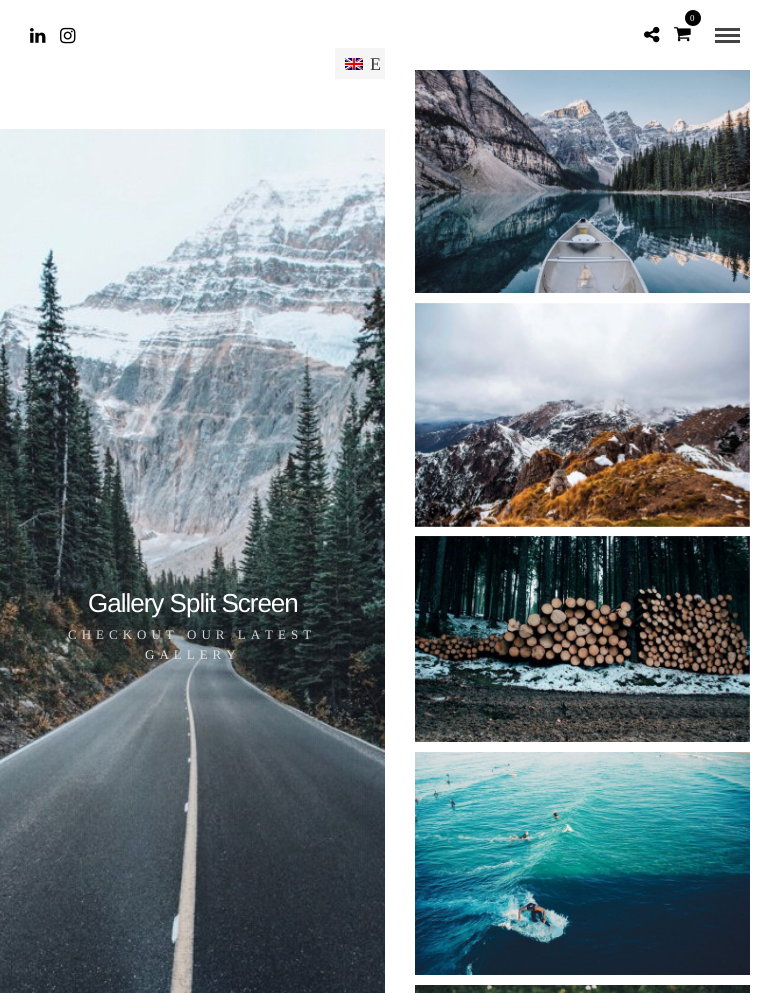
import math
import cairo


def use_color(cr, r, g, b):
  cr.set_source_rgb(r / 255, g / 255, b / 255)

def text(cr, x, y, s, family, size, color, bold=False, italic=False):
  cr.select_font_face(family, cairo.FONT_SLANT_ITALIC if italic else cairo.FONT_SLANT_NORMAL, cairo.FONT_WEIGHT_BOLD if bold else cairo.FONT_WEIGHT_NORMAL)
  cr.set_font_size(size)
  use_color(cr, *color)
  cr.move_to(x, y)
  cr.show_text(s)

def spaced_text(cr, x, y, s, letter, word):
  cr.move_to(x, y)
  for ch in s:
    cr.show_text(ch)
    cr.rel_move_to(letter + word * (ch == ' '), 0)

def box(cr, x, y, w, h, *color):
  use_color(cr, *color)
  cr.rectangle(x, y, w, h)
  cr.fill()

def picture(cr, path, x, y, w, h):
  cr.save()
  cr.set_source_surface(cairo.ImageSurface.create_from_png(path), x, y)
  cr.rectangle(x, y, w, h)
  cr.fill()
  cr.restore()

def draw(cr):
  use_color(cr, 255, 255, 255)
  cr.paint()
  use_color(cr, 0, 0, 0)
  cr.arc(693, 18, 8, 0, 2 * math.pi)
  cr.fill()
  picture(cr, "img_01.png", 674, 27, 17, 15)
  picture(cr, "img_02.png", 644, 26, 16, 17)
  box(cr, 715, 28, 25, 3, 68, 68, 68)
  box(cr, 715, 34, 25, 3, 68, 68, 68)
  box(cr, 715, 40, 25, 3, 68, 68, 68)
  picture(cr, "img_03.png", 30, 28, 16, 15)
  picture(cr, "img_04.png", 60, 27, 16, 17)
  box(cr, 335, 48, 50, 31, 245, 245, 245)
  picture(cr, "img_05.png", 345, 58, 18, 12)
  picture(cr, "img_06.png", 0, 129, 385, 864)
  picture(cr, "img_07.png", 415, 70, 335, 223)
  picture(cr, "img_08.png", 415, 303, 335, 224)
  picture(cr, "img_09.png", 415, 536, 335, 206)
  picture(cr, "img_10.png", 415, 752, 335, 223)
  picture(cr, "img_11.png", 415, 985, 335, 8)
  text(cr, 690, 21, "0", "Liberation Serif", 9, (255, 255, 255))
  text(cr, 370, 70, "E", "Liberation Serif", 18, (57, 57, 57))
  cr.select_font_face("Liberation Sans")
  cr.set_font_size(26)
  use_color(cr, 255, 255, 255)
  spaced_text(cr, 88, 612, "Gallery Split Screen", -1, 0)
  cr.select_font_face("Liberation Serif")
  cr.set_font_size(13)
  use_color(cr, 214, 215, 215)
  spaced_text(cr, 68, 639, "CHECKOUT OUR LATEST", 5, 0)
  use_color(cr, 226, 228, 228)
  spaced_text(cr, 145, 659, "GALLERY", 5, 0)


surface = cairo.ImageSurface(cairo.FORMAT_RGB24, 770, 993)
cr = cairo.Context(surface)
options = cairo.FontOptions()
options.set_hint_metrics(cairo.HINT_METRICS_OFF)
options.set_hint_style(cairo.HINT_STYLE_NONE)
cr.set_font_options(options)
cr.set_miter_limit(4)
draw(cr)
surface.write_to_png("out.png")
